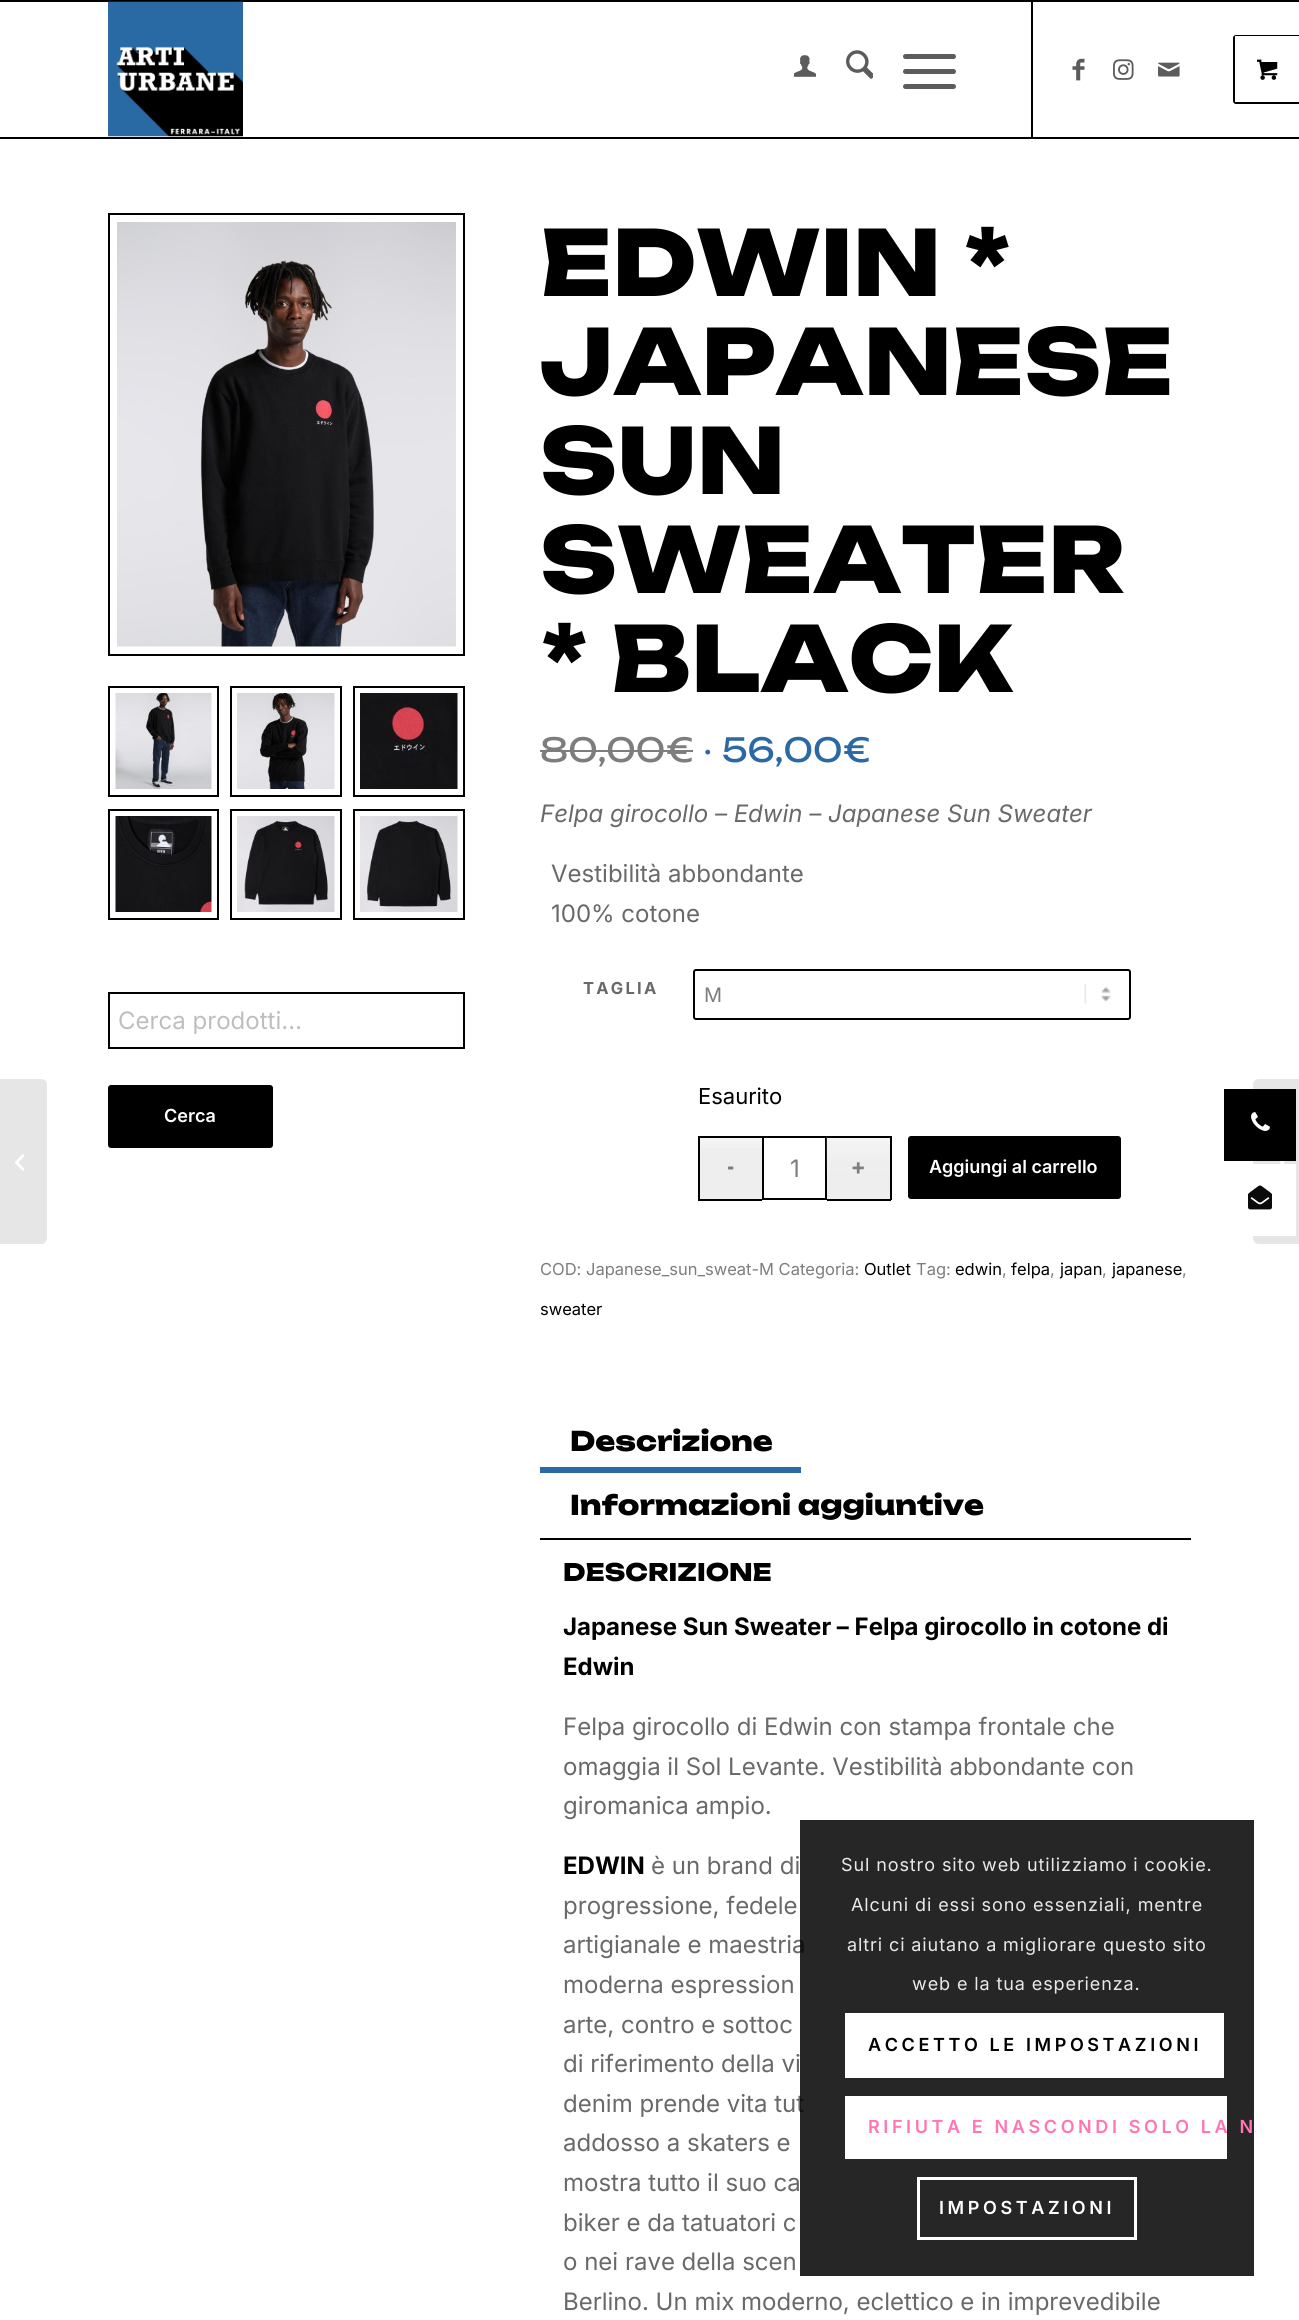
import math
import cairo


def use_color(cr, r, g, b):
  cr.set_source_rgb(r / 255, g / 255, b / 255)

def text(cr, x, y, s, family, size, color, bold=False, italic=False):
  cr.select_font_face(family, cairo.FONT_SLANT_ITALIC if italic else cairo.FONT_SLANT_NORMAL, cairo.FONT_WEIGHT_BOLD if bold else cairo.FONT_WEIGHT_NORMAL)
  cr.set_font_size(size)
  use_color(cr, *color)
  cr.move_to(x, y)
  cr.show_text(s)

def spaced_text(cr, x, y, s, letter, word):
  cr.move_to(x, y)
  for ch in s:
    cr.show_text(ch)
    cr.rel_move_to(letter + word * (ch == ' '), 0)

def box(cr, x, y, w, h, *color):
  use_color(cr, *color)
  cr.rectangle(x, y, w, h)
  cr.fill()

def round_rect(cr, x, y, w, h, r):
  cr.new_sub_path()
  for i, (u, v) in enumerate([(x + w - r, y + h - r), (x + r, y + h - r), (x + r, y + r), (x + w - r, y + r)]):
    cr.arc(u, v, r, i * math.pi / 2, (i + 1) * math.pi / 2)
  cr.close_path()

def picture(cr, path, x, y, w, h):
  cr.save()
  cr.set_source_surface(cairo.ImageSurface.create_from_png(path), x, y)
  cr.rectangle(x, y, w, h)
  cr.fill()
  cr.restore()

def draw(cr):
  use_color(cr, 255, 255, 255)
  cr.paint()
  box(cr, 0, 0, 1299, 2, 0, 0, 0)
  box(cr, 0, 137, 1299, 2, 0, 0, 0)
  picture(cr, "img_01.png", 108, 1, 135, 136)
  box(cr, 1031, 2, 2, 135, 0, 0, 0)
  picture(cr, "img_02.png", 794, 55, 22, 22)
  picture(cr, "img_03.png", 846, 50, 27, 29)
  use_color(cr, 92, 92, 92)
  round_rect(cr, 903, 69, 53, 5, 2.5)
  cr.fill()
  round_rect(cr, 903, 54, 53, 5, 2.5)
  cr.fill()
  round_rect(cr, 903, 84, 53, 5, 2.5)
  cr.fill()
  picture(cr, "img_04.png", 1072, 58, 13, 23)
  picture(cr, "img_05.png", 1113, 59, 21, 21)
  picture(cr, "img_06.png", 1158, 62, 22, 15)
  round_rect(cr, 1234, 36, 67, 67, 2)
  use_color(cr, 0, 0, 0)
  cr.stroke()
  box(cr, 1235, 36, 64, 66, 255, 255, 255)
  picture(cr, "img_07.png", 1257, 59, 21, 21)
  use_color(cr, 230, 230, 230)
  cr.new_path()
  cr.move_to(0, 1079)
  cr.line_to(41, 1079)
  cr.curve_to(44.5, 1079, 47, 1081.5, 47, 1085)
  cr.line_to(47, 1238)
  cr.curve_to(47, 1241.5, 44.5, 1244, 41, 1244)
  cr.line_to(0, 1244)
  cr.close_path()
  cr.fill()
  picture(cr, "img_08.png", 15, 1154, 9, 17)
  cr.rectangle(109, 214, 355, 441)
  use_color(cr, 0, 0, 0)
  cr.stroke()
  picture(cr, "img_09.png", 117, 222, 339, 425)
  cr.rectangle(109, 687, 109, 109)
  cr.stroke()
  picture(cr, "img_10.png", 115, 693, 97, 96)
  cr.rectangle(231, 687, 110, 109)
  cr.stroke()
  picture(cr, "img_11.png", 237, 693, 98, 96)
  cr.rectangle(354, 687, 110, 109)
  cr.stroke()
  picture(cr, "img_12.png", 360, 693, 98, 96)
  cr.rectangle(109, 810, 109, 109)
  cr.stroke()
  picture(cr, "img_13.png", 115, 816, 97, 96)
  cr.rectangle(231, 810, 110, 109)
  cr.stroke()
  picture(cr, "img_14.png", 237, 816, 98, 96)
  cr.rectangle(354, 810, 110, 109)
  cr.stroke()
  picture(cr, "img_15.png", 360, 816, 98, 96)
  cr.rectangle(109, 993, 355, 55)
  cr.stroke()
  round_rect(cr, 108, 1085, 165, 63, 3)
  cr.fill()
  box(cr, 540, 750, 153, 2, 125, 125, 125)
  picture(cr, "img_16.png", 1084, 984, 27, 20)
  round_rect(cr, 694, 970, 436, 49, 2)
  use_color(cr, 0, 0, 0)
  cr.stroke()
  box(cr, 700, 1138, 62, 61, 238, 238, 238)
  picture(cr, "img_17.png", 700, 1138, 62, 10)
  cr.rectangle(763, 1137, 63, 62)
  use_color(cr, 0, 0, 0)
  cr.stroke()
  box(cr, 827, 1138, 63, 61, 238, 238, 238)
  picture(cr, "img_18.png", 826, 1137, 64, 41)
  box(cr, 698, 1136, 64, 2, 0, 0, 0)
  box(cr, 698, 1199, 64, 2, 0, 0, 0)
  box(cr, 698, 1136, 2, 64, 0, 0, 0)
  box(cr, 827, 1136, 64, 2, 0, 0, 0)
  box(cr, 890, 1136, 2, 64, 0, 0, 0)
  box(cr, 827, 1199, 64, 2, 0, 0, 0)
  round_rect(cr, 908, 1136, 213, 63, 3)
  cr.fill()
  box(cr, 540, 1538, 651, 2, 0, 0, 0)
  box(cr, 540, 1467, 261, 6, 42, 105, 164)
  use_color(cr, 230, 230, 230)
  cr.new_path()
  cr.move_to(1259, 1079)
  cr.line_to(1299, 1079)
  cr.line_to(1299, 1244)
  cr.line_to(1259, 1244)
  cr.curve_to(1255.5, 1244, 1253, 1241.5, 1253, 1238)
  cr.line_to(1253, 1085)
  cr.curve_to(1253, 1081.5, 1255.5, 1079, 1259, 1079)
  cr.close_path()
  cr.fill()
  picture(cr, "img_19.png", 1279, 1161, 5, 3)
  box(cr, 1224, 1089, 72, 72, 0, 0, 0)
  picture(cr, "img_20.png", 1251, 1112, 19, 19)
  box(cr, 1253, 1164, 43, 72, 255, 255, 255)
  picture(cr, "img_21.png", 1248, 1185, 24, 25)
  text(cr, 118, 1029, "Cerca prodotti…", "Inter", 24, (190, 190, 190))
  text(cr, 164, 1122, "Cerca", "Inter SemiBold", 18, (255, 255, 255))
  text(cr, 540, 296, "EDWIN *", "Unbounded ExtraBold", 90, (0, 0, 0))
  text(cr, 540, 395, "JAPANESE", "Unbounded ExtraBold", 90, (0, 0, 0))
  text(cr, 540, 494, "SUN", "Unbounded ExtraBold", 90, (0, 0, 0))
  text(cr, 540, 593, "SWEATER", "Unbounded ExtraBold", 90, (0, 0, 0))
  text(cr, 540, 692, "* BLACK", "Unbounded ExtraBold", 90, (0, 0, 0))
  text(cr, 540, 762, "80,00€", "Unbounded", 33, (125, 125, 125))
  text(cr, 704, 762, "∙", "Liberation Serif", 30, (42, 105, 164), bold=True)
  text(cr, 722, 762, "56,00€", "Unbounded", 33, (42, 105, 164))
  text(cr, 540, 822, "Felpa girocollo – Edwin – Japanese Sun Sweater", "Inter", 24, (105, 105, 105), italic=True)
  text(cr, 551, 882, "Vestibilità abbondante", "Inter", 24, (105, 105, 105))
  text(cr, 551, 922, "100% cotone", "Inter", 24, (105, 105, 105))
  cr.select_font_face("Inter", cairo.FONT_SLANT_NORMAL, cairo.FONT_WEIGHT_BOLD)
  cr.set_font_size(16.5)
  spaced_text(cr, 583, 994, "TAGLIA", 2.25, 0)
  text(cr, 704, 1002, "M", "Inter", 20, (125, 125, 125))
  text(cr, 698, 1104, "Esaurito", "Inter", 22, (0, 0, 0))
  text(cr, 727, 1175, "-", "Unbounded SemiBold", 20, (125, 125, 125))
  text(cr, 790, 1177, "1", "Inter", 24, (125, 125, 125))
  text(cr, 852, 1175, "+", "Unbounded SemiBold", 20, (125, 125, 125))
  text(cr, 929, 1173, "Aggiungi al carrello", "Inter SemiBold", 18, (255, 255, 255))
  text(cr, 540, 1275, "COD: Japanese_sun_sweat-M Categoria:", "Inter", 16.5, (125, 125, 125))
  text(cr, 864, 1275, "Outlet", "Inter", 16.5, (0, 0, 0))
  text(cr, 916, 1275, "Tag:", "Inter", 16.5, (125, 125, 125))
  text(cr, 955, 1275, "edwin", "Inter", 16.5, (0, 0, 0))
  text(cr, 1002, 1275, ",", "Inter", 16.5, (125, 125, 125))
  text(cr, 1011, 1275, "felpa", "Inter", 16.5, (0, 0, 0))
  text(cr, 1050, 1275, ",", "Inter", 16.5, (125, 125, 125))
  text(cr, 1060, 1275, "japan", "Inter", 16.5, (0, 0, 0))
  text(cr, 1102, 1275, ",", "Inter", 16.5, (125, 125, 125))
  text(cr, 1112, 1275, "japanese", "Inter", 16.5, (0, 0, 0))
  text(cr, 1182, 1275, ",", "Inter", 16.5, (125, 125, 125))
  text(cr, 540, 1315, "sweater", "Inter", 16.5, (0, 0, 0))
  text(cr, 570, 1451, "Descrizione", "Unbounded ExtraBold", 27, (0, 0, 0))
  text(cr, 570, 1515, "Informazioni aggiuntive", "Unbounded ExtraBold", 27, (0, 0, 0))
  text(cr, 563, 1581, "DESCRIZIONE", "Unbounded ExtraBold", 24, (0, 0, 0))
  text(cr, 563, 1635, "Japanese Sun Sweater – Felpa girocollo in cotone di", "Inter", 24, (0, 0, 0), bold=True)
  text(cr, 563, 1675, "Edwin", "Inter", 24, (0, 0, 0), bold=True)
  text(cr, 563, 1735, "Felpa girocollo di Edwin con stampa frontale che", "Inter", 24, (105, 105, 105))
  text(cr, 563, 1775, "omaggia il Sol Levante. Vestibilità abbondante con", "Inter", 24, (105, 105, 105))
  text(cr, 563, 1814, "giromanica ampio.", "Inter", 24, (105, 105, 105))
  text(cr, 563, 1874, "EDWIN", "Inter", 24, (0, 0, 0), bold=True)
  text(cr, 651, 1874, "è un brand di", "Inter", 24, (105, 105, 105))
  text(cr, 563, 1914, "progressione, fedele", "Inter", 24, (105, 105, 105))
  text(cr, 563, 1953, "artigianale e maestria", "Inter", 24, (105, 105, 105))
  text(cr, 563, 1993, "moderna espression", "Inter", 24, (105, 105, 105))
  text(cr, 563, 2033, "arte, contro e sottoc", "Inter", 24, (105, 105, 105))
  text(cr, 563, 2072, "di riferimento della vi", "Inter", 24, (105, 105, 105))
  text(cr, 563, 2112, "denim prende vita tut", "Inter", 24, (105, 105, 105))
  text(cr, 563, 2151, "addosso a skaters e", "Inter", 24, (105, 105, 105))
  text(cr, 563, 2191, "mostra tutto il suo ca", "Inter", 24, (105, 105, 105))
  text(cr, 563, 2231, "biker e da tatuatori c", "Inter", 24, (105, 105, 105))
  text(cr, 563, 2270, "o nei rave della scen", "Inter", 24, (105, 105, 105))
  text(cr, 563, 2310, "Berlino. Un mix moderno, eclettico e in imprevedibile", "Inter", 24, (105, 105, 105))
  cr.set_source_rgba(0, 0, 0, 0.85)
  cr.rectangle(800, 1820, 454, 456)
  cr.fill()
  cr.set_font_size(18)
  use_color(cr, 233, 233, 233)
  spaced_text(cr, 841, 1871, "Sul nostro sito web utilizziamo i cookie.", 0.9, 0)
  spaced_text(cr, 851, 1911, "Alcuni di essi sono essenziali, mentre", 0.9, 0)
  spaced_text(cr, 847, 1951, "altri ci aiutano a migliorare questo sito", 0.9, 0)
  spaced_text(cr, 912, 1990, "web e la tua esperienza.", 0.9, 0)
  box(cr, 845, 2013, 379, 65, 255, 255, 255)
  cr.select_font_face("Inter SemiBold")
  use_color(cr, 0, 0, 0)
  spaced_text(cr, 868, 2051, "ACCETTO LE IMPOSTAZIONI", 3.6, 0)
  box(cr, 845, 2096, 382, 63, 255, 255, 255)
  use_color(cr, 255, 117, 181)
  spaced_text(cr, 868, 2133, "RIFIUTA E NASCONDI SOLO LA N", 3.6, 0)
  cr.rectangle(918.5, 2178.5, 217, 60)
  use_color(cr, 255, 255, 255)
  cr.set_line_width(3)
  cr.stroke()
  spaced_text(cr, 939, 2214, "IMPOSTAZIONI", 3.6, 0)


surface = cairo.ImageSurface(cairo.FORMAT_RGB24, 1299, 2320)
cr = cairo.Context(surface)
options = cairo.FontOptions()
options.set_hint_metrics(cairo.HINT_METRICS_OFF)
options.set_hint_style(cairo.HINT_STYLE_NONE)
cr.set_font_options(options)
cr.set_miter_limit(4)
draw(cr)
surface.write_to_png("out.png")
